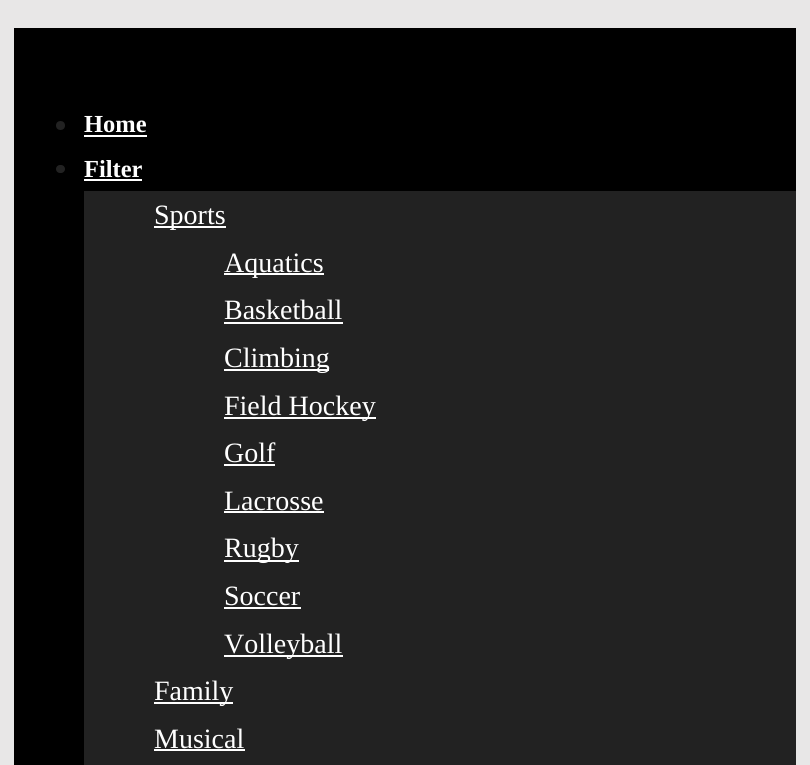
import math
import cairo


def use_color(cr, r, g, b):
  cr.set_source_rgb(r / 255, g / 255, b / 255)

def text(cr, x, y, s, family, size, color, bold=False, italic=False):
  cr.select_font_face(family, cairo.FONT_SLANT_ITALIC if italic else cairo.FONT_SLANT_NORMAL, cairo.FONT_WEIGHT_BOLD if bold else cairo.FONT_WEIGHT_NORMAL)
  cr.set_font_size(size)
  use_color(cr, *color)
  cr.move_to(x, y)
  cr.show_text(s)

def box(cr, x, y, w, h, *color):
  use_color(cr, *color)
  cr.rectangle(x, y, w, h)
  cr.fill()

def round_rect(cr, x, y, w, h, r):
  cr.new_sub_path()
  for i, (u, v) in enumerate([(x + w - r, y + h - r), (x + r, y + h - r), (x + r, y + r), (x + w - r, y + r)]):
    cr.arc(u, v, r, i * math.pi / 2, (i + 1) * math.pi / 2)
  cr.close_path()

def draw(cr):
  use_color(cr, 232, 231, 231)
  cr.paint()
  box(cr, 14, 28, 782, 737, 0, 0, 0)
  use_color(cr, 34, 34, 34)
  cr.arc(60.5, 125.5, 4.5, 0, 2 * math.pi)
  cr.fill()
  box(cr, 84, 135, 63, 2, 255, 255, 255)
  use_color(cr, 34, 34, 34)
  round_rect(cr, 56, 165, 9, 8, 4)
  cr.fill()
  box(cr, 84, 179, 58, 2, 255, 255, 255)
  box(cr, 84, 191, 712, 574, 34, 34, 34)
  box(cr, 154, 226, 72, 2, 255, 255, 255)
  box(cr, 224, 273, 100, 2, 255, 255, 255)
  box(cr, 224, 322, 119, 2, 255, 255, 255)
  box(cr, 224, 369, 105, 2, 255, 255, 255)
  box(cr, 224, 417, 152, 2, 255, 255, 255)
  box(cr, 224, 464, 51, 2, 255, 255, 255)
  box(cr, 224, 511, 100, 2, 255, 255, 255)
  box(cr, 224, 560, 75, 2, 255, 255, 255)
  box(cr, 224, 607, 77, 2, 255, 255, 255)
  box(cr, 224, 655, 119, 2, 255, 255, 255)
  box(cr, 154, 702, 79, 2, 255, 255, 255)
  box(cr, 154, 749, 91, 2, 255, 255, 255)
  text(cr, 84, 132, "Home", "Liberation Serif", 24.5, (255, 255, 255), bold=True)
  text(cr, 84, 177, "Filter", "Liberation Serif", 24.5, (255, 255, 255), bold=True)
  text(cr, 154, 224, "Sports", "Liberation Serif", 28, (255, 255, 255))
  text(cr, 224, 272, "Aquatics", "Liberation Serif", 28, (255, 255, 255))
  text(cr, 224, 319, "Basketball", "Liberation Serif", 28, (255, 255, 255))
  text(cr, 224, 367, "Climbing", "Liberation Serif", 28, (255, 255, 255))
  text(cr, 224, 415, "Field Hockey", "Liberation Serif", 28, (255, 255, 255))
  text(cr, 224, 462, "Golf", "Liberation Serif", 28, (255, 255, 255))
  text(cr, 224, 510, "Lacrosse", "Liberation Serif", 28, (255, 255, 255))
  text(cr, 224, 557, "Rugby", "Liberation Serif", 28, (255, 255, 255))
  text(cr, 224, 605, "Soccer", "Liberation Serif", 28, (255, 255, 255))
  text(cr, 224, 653, "Volleyball", "Liberation Serif", 28, (255, 255, 255))
  text(cr, 154, 700, "Family", "Liberation Serif", 28, (255, 255, 255))
  text(cr, 154, 748, "Musical", "Liberation Serif", 28, (255, 255, 255))


surface = cairo.ImageSurface(cairo.FORMAT_RGB24, 810, 765)
cr = cairo.Context(surface)
options = cairo.FontOptions()
options.set_hint_metrics(cairo.HINT_METRICS_OFF)
options.set_hint_style(cairo.HINT_STYLE_NONE)
cr.set_font_options(options)
cr.set_miter_limit(4)
draw(cr)
surface.write_to_png("out.png")
